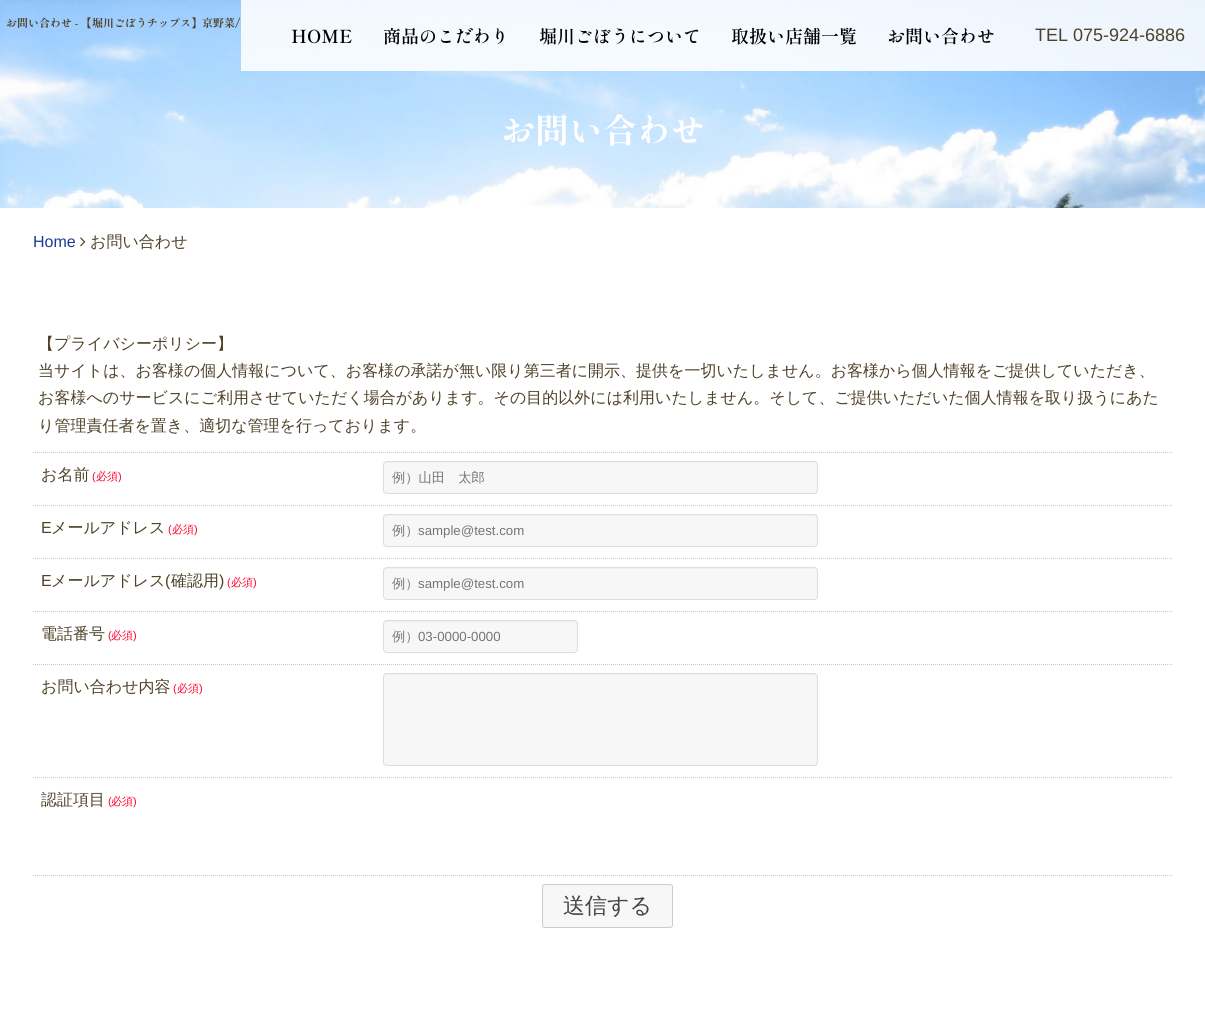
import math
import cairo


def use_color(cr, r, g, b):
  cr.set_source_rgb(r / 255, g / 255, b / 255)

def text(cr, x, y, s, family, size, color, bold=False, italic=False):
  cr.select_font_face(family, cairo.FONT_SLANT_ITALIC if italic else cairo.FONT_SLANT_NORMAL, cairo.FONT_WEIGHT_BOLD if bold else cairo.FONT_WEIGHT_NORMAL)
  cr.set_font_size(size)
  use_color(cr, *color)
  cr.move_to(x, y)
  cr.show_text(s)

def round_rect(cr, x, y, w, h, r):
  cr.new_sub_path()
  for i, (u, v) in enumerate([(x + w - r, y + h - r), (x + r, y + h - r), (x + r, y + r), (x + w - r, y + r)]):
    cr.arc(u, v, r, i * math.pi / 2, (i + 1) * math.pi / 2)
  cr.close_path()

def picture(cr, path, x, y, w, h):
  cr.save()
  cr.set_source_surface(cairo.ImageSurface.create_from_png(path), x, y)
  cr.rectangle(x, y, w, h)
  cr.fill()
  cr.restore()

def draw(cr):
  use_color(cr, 255, 255, 255)
  cr.paint()
  picture(cr, "img_01.png", 0, 0, 1205, 208)
  cr.set_source_rgba(1, 1, 1, 0.87)
  cr.rectangle(241, 0, 964, 71)
  cr.fill()
  picture(cr, "img_02.png", 80, 237, 6, 10)
  cr.new_path()
  cr.move_to(33, 452.5)
  cr.line_to(375, 452.5)
  use_color(cr, 204, 204, 204)
  cr.set_line_width(1)
  cr.set_dash([1, 1])
  cr.stroke()
  cr.new_path()
  cr.move_to(375, 452.5)
  cr.line_to(1173, 452.5)
  cr.stroke()
  use_color(cr, 247, 247, 247)
  round_rect(cr, 383, 461, 435, 33, 4)
  cr.fill()
  use_color(cr, 240, 240, 240)
  cr.new_path()
  cr.move_to(387, 463)
  cr.line_to(814, 463)
  cr.curve_to(816, 463, 817, 464, 817, 466)
  cr.curve_to(817, 464, 816, 462, 814, 462)
  cr.line_to(387, 462)
  cr.curve_to(385, 462, 384, 464, 384, 466)
  cr.curve_to(384, 464, 385, 463, 387, 463)
  cr.close_path()
  cr.fill()
  round_rect(cr, 383.5, 461.5, 434, 32, 3.5)
  use_color(cr, 221, 221, 221)
  cr.set_dash([])
  cr.stroke()
  cr.new_path()
  cr.move_to(33, 505.5)
  cr.line_to(375, 505.5)
  use_color(cr, 204, 204, 204)
  cr.set_dash([1, 1])
  cr.stroke()
  cr.new_path()
  cr.move_to(375, 505.5)
  cr.line_to(1173, 505.5)
  cr.stroke()
  use_color(cr, 247, 247, 247)
  round_rect(cr, 383, 514, 435, 33, 4)
  cr.fill()
  use_color(cr, 240, 240, 240)
  cr.new_path()
  cr.move_to(387, 516)
  cr.line_to(814, 516)
  cr.curve_to(816, 516, 817, 517, 817, 519)
  cr.curve_to(817, 517, 816, 515, 814, 515)
  cr.line_to(387, 515)
  cr.curve_to(385, 515, 384, 517, 384, 519)
  cr.curve_to(384, 517, 385, 516, 387, 516)
  cr.close_path()
  cr.fill()
  round_rect(cr, 383.5, 514.5, 434, 32, 3.5)
  use_color(cr, 221, 221, 221)
  cr.set_dash([])
  cr.stroke()
  cr.new_path()
  cr.move_to(33, 558.5)
  cr.line_to(375, 558.5)
  use_color(cr, 204, 204, 204)
  cr.set_dash([1, 1])
  cr.stroke()
  cr.new_path()
  cr.move_to(375, 558.5)
  cr.line_to(1173, 558.5)
  cr.stroke()
  use_color(cr, 247, 247, 247)
  round_rect(cr, 383, 567, 435, 33, 4)
  cr.fill()
  use_color(cr, 240, 240, 240)
  cr.new_path()
  cr.move_to(387, 569)
  cr.line_to(814, 569)
  cr.curve_to(816, 569, 817, 570, 817, 572)
  cr.curve_to(817, 570, 816, 568, 814, 568)
  cr.line_to(387, 568)
  cr.curve_to(385, 568, 384, 570, 384, 572)
  cr.curve_to(384, 570, 385, 569, 387, 569)
  cr.close_path()
  cr.fill()
  round_rect(cr, 383.5, 567.5, 434, 32, 3.5)
  use_color(cr, 221, 221, 221)
  cr.set_dash([])
  cr.stroke()
  cr.new_path()
  cr.move_to(33, 611.5)
  cr.line_to(375, 611.5)
  use_color(cr, 204, 204, 204)
  cr.set_dash([1, 1])
  cr.stroke()
  cr.new_path()
  cr.move_to(375, 611.5)
  cr.line_to(1173, 611.5)
  cr.stroke()
  use_color(cr, 247, 247, 247)
  round_rect(cr, 383, 620, 195, 33, 4)
  cr.fill()
  use_color(cr, 240, 240, 240)
  cr.new_path()
  cr.move_to(387, 622)
  cr.line_to(574, 622)
  cr.curve_to(576, 622, 577, 623, 577, 625)
  cr.curve_to(577, 623, 576, 621, 574, 621)
  cr.line_to(387, 621)
  cr.curve_to(385, 621, 384, 623, 384, 625)
  cr.curve_to(384, 623, 385, 622, 387, 622)
  cr.close_path()
  cr.fill()
  round_rect(cr, 383.5, 620.5, 194, 32, 3.5)
  use_color(cr, 221, 221, 221)
  cr.set_dash([])
  cr.stroke()
  cr.new_path()
  cr.move_to(33, 664.5)
  cr.line_to(375, 664.5)
  use_color(cr, 204, 204, 204)
  cr.set_dash([1, 1])
  cr.stroke()
  cr.new_path()
  cr.move_to(375, 664.5)
  cr.line_to(1173, 664.5)
  cr.stroke()
  use_color(cr, 247, 247, 247)
  round_rect(cr, 383, 673, 435, 93, 4)
  cr.fill()
  use_color(cr, 240, 240, 240)
  cr.new_path()
  cr.move_to(387, 675)
  cr.line_to(814, 675)
  cr.curve_to(816, 675, 817, 676, 817, 678)
  cr.curve_to(817, 676, 816, 674, 814, 674)
  cr.line_to(387, 674)
  cr.curve_to(385, 674, 384, 676, 384, 678)
  cr.curve_to(384, 676, 385, 675, 387, 675)
  cr.close_path()
  cr.fill()
  round_rect(cr, 383.5, 673.5, 434, 92, 3.5)
  use_color(cr, 221, 221, 221)
  cr.set_dash([])
  cr.stroke()
  cr.new_path()
  cr.move_to(375, 777.5)
  cr.line_to(1173, 777.5)
  use_color(cr, 204, 204, 204)
  cr.set_dash([1, 1])
  cr.stroke()
  cr.new_path()
  cr.move_to(33, 777.5)
  cr.line_to(375, 777.5)
  cr.stroke()
  cr.new_path()
  cr.move_to(33, 875.5)
  cr.line_to(1173, 875.5)
  cr.stroke()
  use_color(cr, 247, 247, 247)
  round_rect(cr, 542.5, 884.5, 130, 43, 2.5)
  cr.fill_preserve()
  use_color(cr, 204, 204, 204)
  cr.set_dash([])
  cr.stroke()
  text(cr, 6, 27, "お問い合わせ - 【堀川ごぼうチップス】京野菜/", "Shippori Mincho B1", 11, (78, 65, 40), bold=True)
  text(cr, 291, 43, "HOME", "Shippori Mincho B1 SemiBold", 18, (0, 0, 0))
  text(cr, 383, 43, "商品のこだわり", "Shippori Mincho B1 SemiBold", 18, (0, 0, 0))
  text(cr, 539, 43, "堀川ごぼうについて", "Shippori Mincho B1 SemiBold", 18, (0, 0, 0))
  text(cr, 731, 43, "取扱い店舗一覧", "Shippori Mincho B1 SemiBold", 18, (0, 0, 0))
  text(cr, 887, 43, "お問い合わせ", "Shippori Mincho B1 SemiBold", 18, (0, 0, 0))
  text(cr, 1035, 41, "TEL 075-924-6886", "Liberation Sans", 18, (78, 65, 40))
  text(cr, 501, 143, "お問い合わせ", "Shippori Mincho B1", 34, (255, 255, 255), bold=True)
  text(cr, 33, 247, "Home", "Liberation Sans", 16, (29, 57, 148))
  text(cr, 90, 247, "お問い合わせ", "WenQuanYi Zen Hei Medium", 16, (78, 65, 40))
  text(cr, 38, 349, "【プライバシーポリシー】", "WenQuanYi Zen Hei Medium", 16, (78, 65, 40))
  text(cr, 38, 376, "当サイトは、お客様の個人情報について、お客様の承諾が無い限り第三者に開示、提供を一切いたしません。お客様から個人情報をご提供していただき、", "WenQuanYi Zen Hei Medium", 16, (78, 65, 40))
  text(cr, 38, 403, "お客様へのサービスにご利用させていただく場合があります。その目的以外には利用いたしません。そして、ご提供いただいた個人情報を取り扱うにあた", "WenQuanYi Zen Hei Medium", 16, (78, 65, 40))
  text(cr, 38, 431, "り管理責任者を置き、適切な管理を行っております。", "WenQuanYi Zen Hei Medium", 16, (78, 65, 40))
  text(cr, 41, 480, "お名前", "WenQuanYi Zen Hei Medium", 16, (78, 65, 40))
  text(cr, 92, 480, "(", "Liberation Sans", 11, (255, 0, 42))
  text(cr, 96, 480, "必須", "WenQuanYi Zen Hei Medium", 11, (255, 0, 42))
  text(cr, 118, 480, ")", "Liberation Sans", 11, (255, 0, 42))
  text(cr, 392, 482, "例）山田　太郎", "WenQuanYi Zen Hei Medium", 13.25, (117, 117, 117))
  text(cr, 41, 533, "E", "Liberation Sans", 16, (78, 65, 40))
  text(cr, 51, 533, "メールアドレス", "WenQuanYi Zen Hei Medium", 16, (78, 65, 40))
  text(cr, 168, 533, "(", "Liberation Sans", 11, (255, 0, 42))
  text(cr, 172, 533, "必須", "WenQuanYi Zen Hei Medium", 11, (255, 0, 42))
  text(cr, 194, 533, ")", "Liberation Sans", 11, (255, 0, 42))
  text(cr, 392, 535, "例）", "WenQuanYi Zen Hei Medium", 13.25, (117, 117, 117))
  text(cr, 418, 535, "sample@test.com", "Liberation Sans", 13.25, (117, 117, 117))
  text(cr, 41, 586, "E", "Liberation Sans", 16, (78, 65, 40))
  text(cr, 51, 586, "メールアドレス", "WenQuanYi Zen Hei Medium", 16, (78, 65, 40))
  text(cr, 165, 586, "(", "Liberation Sans", 16, (78, 65, 40))
  text(cr, 171, 586, "確認用", "WenQuanYi Zen Hei Medium", 16, (78, 65, 40))
  text(cr, 219, 586, ")", "Liberation Sans", 16, (78, 65, 40))
  text(cr, 227, 586, "(", "Liberation Sans", 11, (255, 0, 42))
  text(cr, 231, 586, "必須", "WenQuanYi Zen Hei Medium", 11, (255, 0, 42))
  text(cr, 253, 586, ")", "Liberation Sans", 11, (255, 0, 42))
  text(cr, 392, 588, "例）", "WenQuanYi Zen Hei Medium", 13.25, (117, 117, 117))
  text(cr, 418, 588, "sample@test.com", "Liberation Sans", 13.25, (117, 117, 117))
  text(cr, 41, 639, "電話番号", "WenQuanYi Zen Hei Medium", 16, (78, 65, 40))
  text(cr, 108, 639, "(", "Liberation Sans", 11, (255, 0, 42))
  text(cr, 111, 639, "必須", "WenQuanYi Zen Hei Medium", 11, (255, 0, 42))
  text(cr, 133, 639, ")", "Liberation Sans", 11, (255, 0, 42))
  text(cr, 392, 641, "例）", "WenQuanYi Zen Hei Medium", 13.25, (117, 117, 117))
  text(cr, 418, 641, "03-0000-0000", "Liberation Sans", 13.25, (117, 117, 117))
  text(cr, 41, 692, "お問い合わせ内容", "WenQuanYi Zen Hei Medium", 16, (78, 65, 40))
  text(cr, 173, 692, "(", "Liberation Sans", 11, (255, 0, 42))
  text(cr, 177, 692, "必須", "WenQuanYi Zen Hei Medium", 11, (255, 0, 42))
  text(cr, 199, 692, ")", "Liberation Sans", 11, (255, 0, 42))
  text(cr, 41, 805, "認証項目", "WenQuanYi Zen Hei Medium", 16, (78, 65, 40))
  text(cr, 108, 805, "(", "Liberation Sans", 11, (255, 0, 42))
  text(cr, 111, 805, "必須", "WenQuanYi Zen Hei Medium", 11, (255, 0, 42))
  text(cr, 133, 805, ")", "Liberation Sans", 11, (255, 0, 42))
  text(cr, 563, 913, "送信する", "WenQuanYi Zen Hei Medium", 22, (68, 68, 68))


surface = cairo.ImageSurface(cairo.FORMAT_RGB24, 1205, 1033)
cr = cairo.Context(surface)
options = cairo.FontOptions()
options.set_hint_metrics(cairo.HINT_METRICS_OFF)
options.set_hint_style(cairo.HINT_STYLE_NONE)
cr.set_font_options(options)
cr.set_miter_limit(4)
draw(cr)
surface.write_to_png("out.png")
